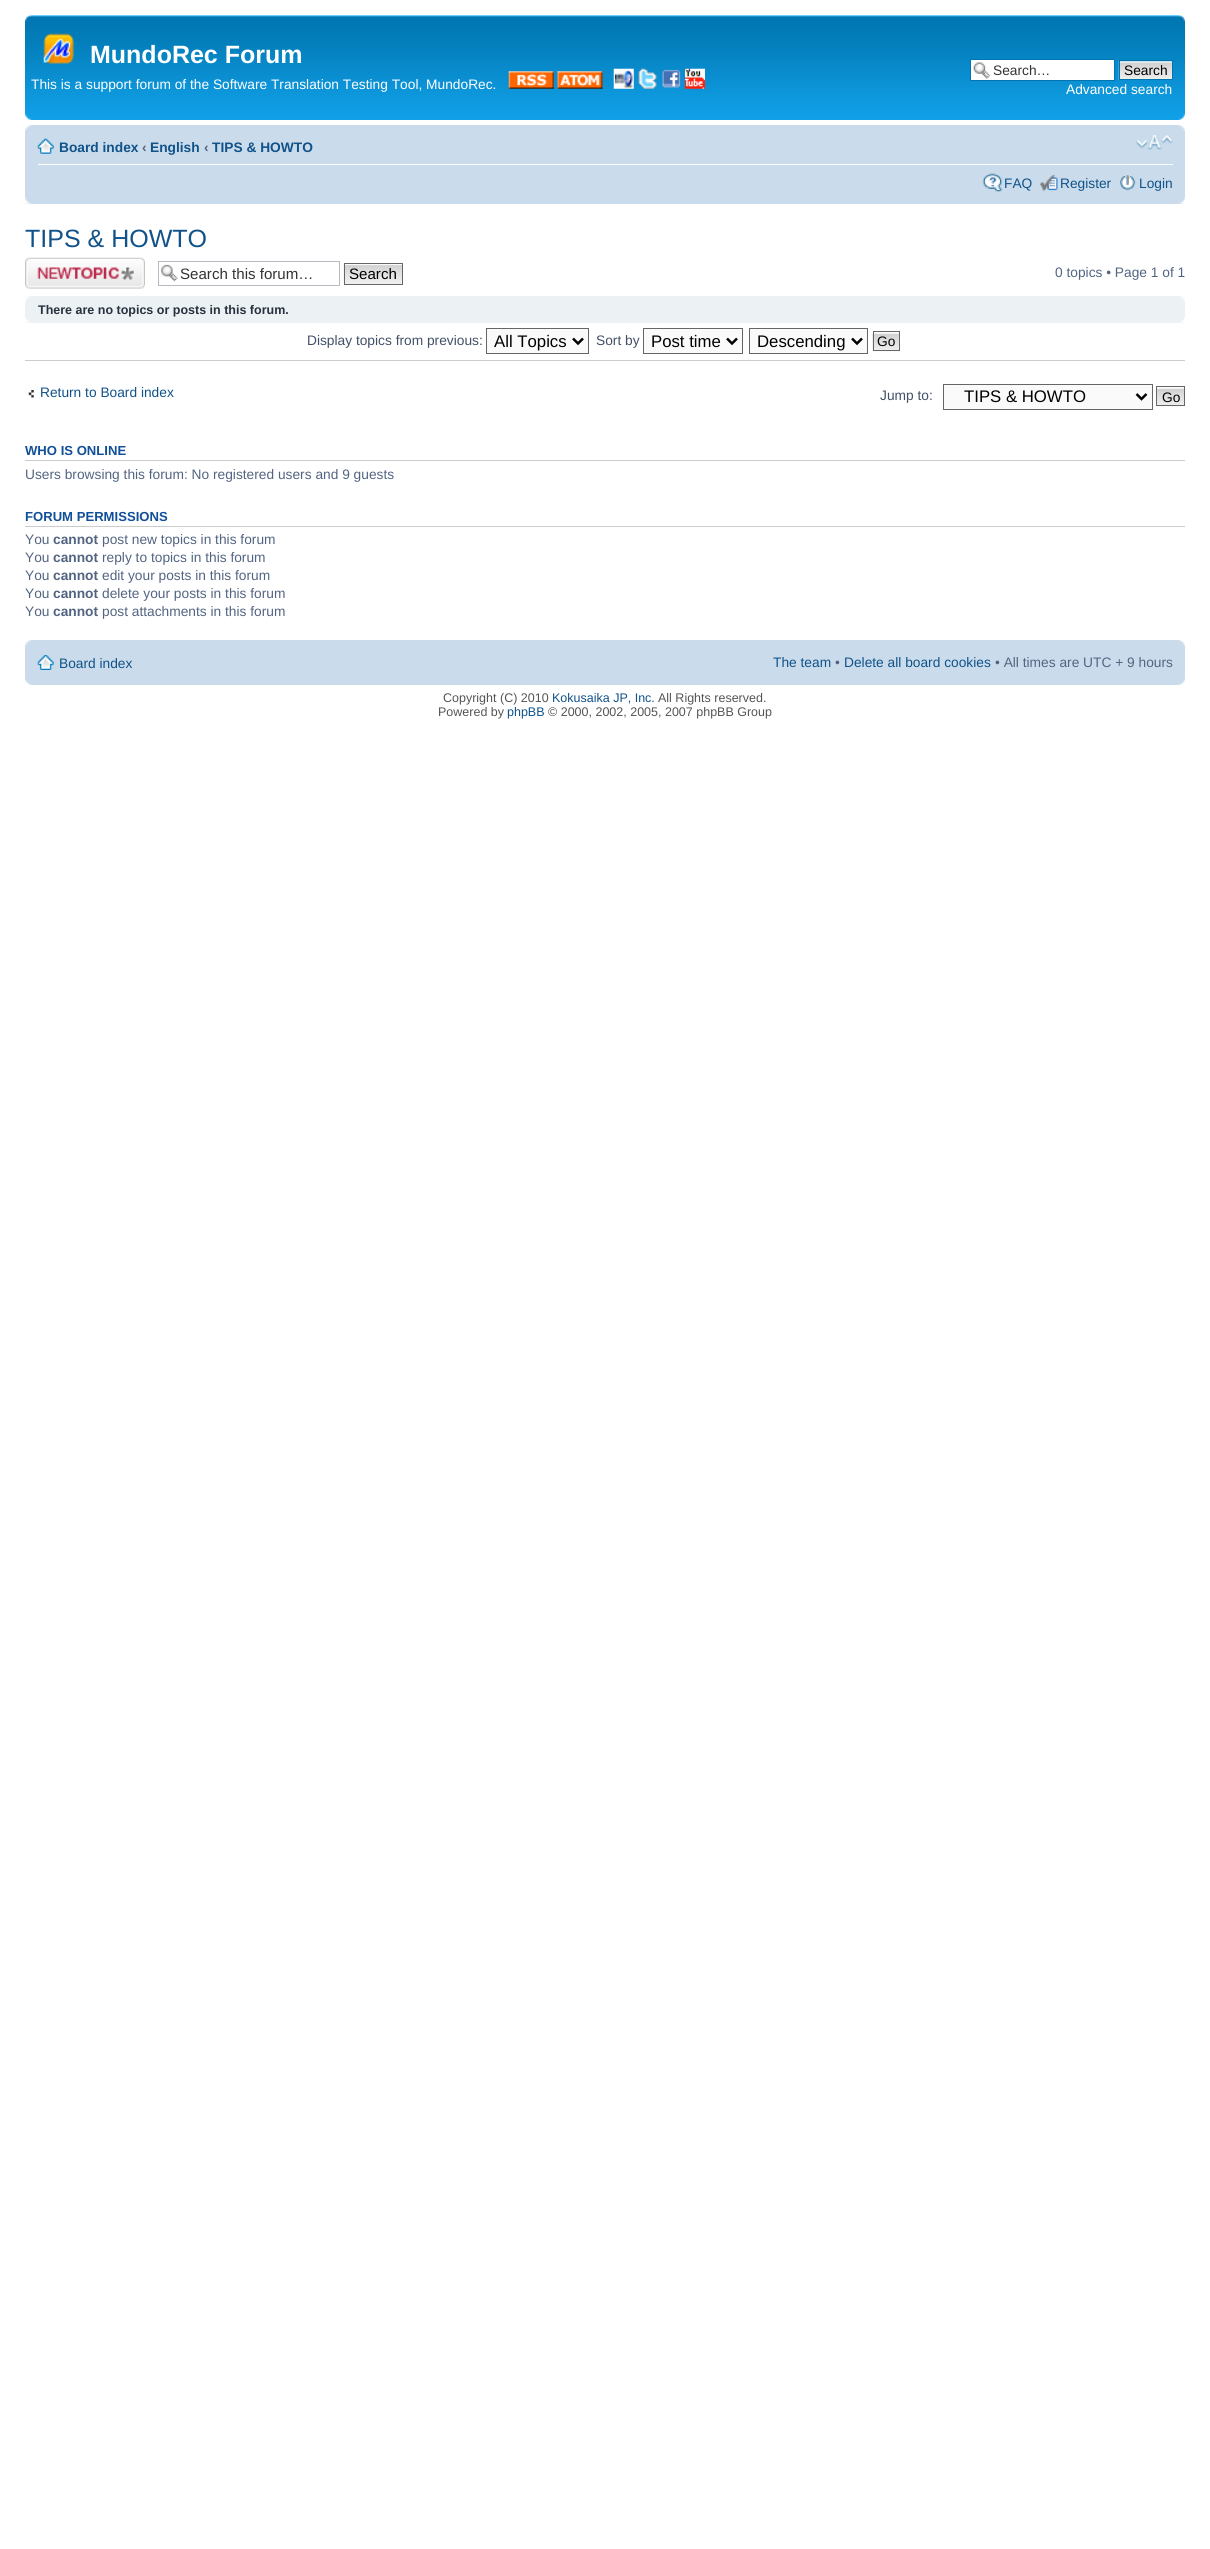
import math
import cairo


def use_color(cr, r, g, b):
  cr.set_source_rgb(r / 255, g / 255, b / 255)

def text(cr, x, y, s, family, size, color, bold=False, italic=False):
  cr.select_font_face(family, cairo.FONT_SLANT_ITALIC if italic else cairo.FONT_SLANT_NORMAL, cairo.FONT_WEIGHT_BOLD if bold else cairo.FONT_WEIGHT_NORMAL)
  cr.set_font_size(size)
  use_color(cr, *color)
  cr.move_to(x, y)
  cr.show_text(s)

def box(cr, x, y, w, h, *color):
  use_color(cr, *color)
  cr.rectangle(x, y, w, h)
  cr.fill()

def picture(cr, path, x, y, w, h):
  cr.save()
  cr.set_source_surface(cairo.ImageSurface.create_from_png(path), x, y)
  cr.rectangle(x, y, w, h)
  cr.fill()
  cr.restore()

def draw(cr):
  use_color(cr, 255, 255, 255)
  cr.paint()
  picture(cr, "img_01.png", 25, 15, 1160, 105)
  picture(cr, "img_02.png", 25, 15, 7, 7)
  picture(cr, "img_03.png", 1178, 15, 7, 7)
  picture(cr, "img_04.png", 43, 33, 31, 31)
  picture(cr, "img_05.png", 508, 71, 46, 18)
  picture(cr, "img_06.png", 557, 71, 46, 18)
  picture(cr, "img_07.png", 613, 68, 21, 21)
  picture(cr, "img_08.png", 638, 68, 19, 21)
  picture(cr, "img_09.png", 662, 69, 19, 19)
  picture(cr, "img_10.png", 685, 68, 20, 21)
  box(cr, 971, 60, 143, 20, 255, 255, 255)
  picture(cr, "img_11.png", 973, 62, 18, 17)
  cr.rectangle(970.5, 59.5, 144, 21)
  use_color(cr, 0, 117, 176)
  cr.set_line_width(1)
  cr.stroke()
  picture(cr, "img_12.png", 1118, 61, 54, 19)
  cr.rectangle(1119.5, 60.5, 53, 19)
  cr.stroke()
  picture(cr, "img_13.png", 25, 113, 7, 7)
  picture(cr, "img_14.png", 1178, 113, 7, 7)
  box(cr, 25, 125, 1160, 79, 202, 220, 235)
  picture(cr, "img_15.png", 25, 125, 7, 6)
  picture(cr, "img_16.png", 1178, 125, 7, 6)
  box(cr, 38, 164, 1135, 1, 255, 255, 255)
  picture(cr, "img_17.png", 37, 138, 17, 16)
  picture(cr, "img_18.png", 1136, 135, 37, 15)
  picture(cr, "img_19.png", 982, 173, 21, 19)
  picture(cr, "img_20.png", 1039, 174, 19, 18)
  picture(cr, "img_21.png", 1119, 175, 17, 16)
  picture(cr, "img_22.png", 25, 197, 6, 7)
  picture(cr, "img_23.png", 1179, 197, 6, 7)
  picture(cr, "img_24.png", 25, 257, 120, 32)
  picture(cr, "img_25.png", 161, 264, 17, 18)
  cr.rectangle(158.5, 261.5, 181, 24)
  use_color(cr, 180, 186, 192)
  cr.stroke()
  box(cr, 345, 264, 57, 1, 250, 250, 250)
  picture(cr, "img_26.png", 343, 265, 59, 20)
  cr.rectangle(344.5, 263.5, 58, 21)
  use_color(cr, 102, 102, 102)
  cr.stroke()
  box(cr, 25, 296, 1160, 27, 236, 241, 243)
  picture(cr, "img_27.png", 25, 296, 6, 6)
  picture(cr, "img_28.png", 1180, 296, 5, 6)
  picture(cr, "img_29.png", 25, 317, 5, 6)
  picture(cr, "img_30.png", 1180, 317, 5, 6)
  use_color(cr, 250, 250, 250)
  cr.rectangle(486.5, 328.5, 102, 25)
  cr.fill_preserve()
  use_color(cr, 102, 102, 102)
  cr.stroke()
  cr.new_path()
  cr.move_to(573, 338.5)
  cr.line_to(578, 343.5)
  cr.line_to(583, 338.5)
  use_color(cr, 0, 0, 0)
  cr.set_line_width(2.5)
  cr.stroke()
  use_color(cr, 250, 250, 250)
  cr.rectangle(643.5, 328.5, 99, 25)
  cr.fill_preserve()
  use_color(cr, 102, 102, 102)
  cr.set_line_width(1)
  cr.stroke()
  cr.new_path()
  cr.move_to(727, 338.5)
  cr.line_to(732, 343.5)
  cr.line_to(737, 338.5)
  use_color(cr, 0, 0, 0)
  cr.set_line_width(2.5)
  cr.stroke()
  use_color(cr, 250, 250, 250)
  cr.rectangle(749.5, 328.5, 118, 25)
  cr.fill_preserve()
  use_color(cr, 102, 102, 102)
  cr.set_line_width(1)
  cr.stroke()
  cr.new_path()
  cr.move_to(852, 338.5)
  cr.line_to(857, 343.5)
  cr.line_to(862, 338.5)
  use_color(cr, 0, 0, 0)
  cr.set_line_width(2.5)
  cr.stroke()
  box(cr, 874, 332, 25, 1, 250, 250, 250)
  picture(cr, "img_31.png", 872, 333, 28, 19)
  cr.rectangle(873.5, 331.5, 26, 19)
  use_color(cr, 102, 102, 102)
  cr.set_line_width(1)
  cr.stroke()
  box(cr, 25, 360, 1160, 1, 204, 204, 204)
  picture(cr, "img_32.png", 28, 390, 6, 8)
  use_color(cr, 250, 250, 250)
  cr.rectangle(943.5, 384.5, 209, 25)
  cr.fill_preserve()
  use_color(cr, 102, 102, 102)
  cr.stroke()
  cr.new_path()
  cr.move_to(1136.5, 394)
  cr.line_to(1141.5, 399)
  cr.line_to(1146.5, 394)
  use_color(cr, 0, 0, 0)
  cr.set_line_width(2.5)
  cr.stroke()
  box(cr, 1157, 387, 27, 1, 250, 250, 250)
  picture(cr, "img_33.png", 1156, 388, 29, 19)
  cr.rectangle(1156.5, 386.5, 28, 19)
  use_color(cr, 102, 102, 102)
  cr.set_line_width(1)
  cr.stroke()
  box(cr, 25, 460, 1160, 1, 204, 204, 204)
  box(cr, 25, 526, 1160, 1, 204, 204, 204)
  box(cr, 25, 640, 1160, 45, 202, 220, 235)
  picture(cr, "img_15.png", 25, 640, 7, 6)
  picture(cr, "img_16.png", 1178, 640, 7, 6)
  picture(cr, "img_34.png", 37, 655, 17, 15)
  picture(cr, "img_35.png", 25, 679, 6, 6)
  picture(cr, "img_36.png", 1179, 679, 6, 6)
  text(cr, 90, 63, "MundoRec Forum", "Liberation Sans", 25, (255, 255, 255), bold=True)
  text(cr, 31, 89, "This is a support forum of the Software Translation Testing Tool, MundoRec.", "Liberation Sans", 13.75, (255, 255, 255))
  text(cr, 993, 75, "Search…", "Liberation Sans", 13.75, (51, 51, 51))
  text(cr, 1124, 75, "Search", "Liberation Sans", 13.75, (0, 0, 0))
  text(cr, 1066, 94, "Advanced search", "Liberation Sans", 13.75, (255, 255, 255))
  text(cr, 59, 152, "Board index", "Liberation Sans", 13.75, (16, 82, 137), bold=True)
  text(cr, 142, 152, "‹", "Liberation Sans", 13.75, (83, 100, 130), bold=True)
  text(cr, 150, 152, "English", "Liberation Sans", 13.75, (16, 82, 137), bold=True)
  text(cr, 204, 152, "‹", "Liberation Sans", 13.75, (83, 100, 130), bold=True)
  text(cr, 212, 152, "TIPS & HOWTO", "Liberation Sans", 13.75, (16, 82, 137), bold=True)
  text(cr, 1004, 188, "FAQ", "Liberation Sans", 13.75, (16, 82, 137))
  text(cr, 1060, 188, "Register", "Liberation Sans", 13.75, (16, 82, 137))
  text(cr, 1139, 188, "Login", "Liberation Sans", 13.75, (16, 82, 137))
  text(cr, 25, 247, "TIPS & HOWTO", "Liberation Sans", 25, (16, 82, 137))
  text(cr, 180, 279, "Search this forum…", "Liberation Sans", 15.1, (51, 51, 51))
  text(cr, 349, 279, "Search", "Liberation Sans", 15.1, (0, 0, 0))
  text(cr, 1055, 277, "0 topics • Page 1 of 1", "Liberation Sans", 13.75, (83, 100, 130))
  text(cr, 38, 314, "There are no topics or posts in this forum.", "Liberation Sans", 12.5, (40, 49, 63), bold=True)
  text(cr, 307, 345, "Display topics from previous:", "Liberation Sans", 13.75, (66, 80, 103))
  text(cr, 494, 347, "All Topics", "Liberation Sans", 16.75, (0, 0, 0))
  text(cr, 596, 345, "Sort by", "Liberation Sans", 13.75, (66, 80, 103))
  text(cr, 651, 347, "Post time", "Liberation Sans", 16.75, (0, 0, 0))
  text(cr, 757, 347, "Descending", "Liberation Sans", 16.75, (0, 0, 0))
  text(cr, 877, 346, "Go", "Liberation Sans", 13.75, (0, 0, 0))
  text(cr, 40, 397, "Return to Board index", "Liberation Sans", 13.75, (16, 82, 137))
  text(cr, 880, 400, "Jump to:", "Liberation Sans", 13.75, (66, 80, 103))
  text(cr, 964, 402, "TIPS & HOWTO", "Liberation Sans", 16.75, (0, 0, 0))
  text(cr, 1162, 402, "Go", "Liberation Sans", 13.75, (0, 0, 0))
  text(cr, 25, 455, "WHO IS ONLINE", "Liberation Sans", 13.1, (17, 80, 152), bold=True)
  text(cr, 25, 479, "Users browsing this forum: No registered users and 9 guests", "Liberation Sans", 13.75, (83, 100, 130))
  text(cr, 25, 521, "FORUM PERMISSIONS", "Liberation Sans", 13.1, (17, 80, 152), bold=True)
  text(cr, 25, 544, "You", "Liberation Sans", 13.75, (83, 100, 130))
  text(cr, 53, 544, "cannot", "Liberation Sans", 13.75, (83, 100, 130), bold=True)
  text(cr, 102, 544, "post new topics in this forum", "Liberation Sans", 13.75, (83, 100, 130))
  text(cr, 25, 562, "You", "Liberation Sans", 13.75, (83, 100, 130))
  text(cr, 53, 562, "cannot", "Liberation Sans", 13.75, (83, 100, 130), bold=True)
  text(cr, 102, 562, "reply to topics in this forum", "Liberation Sans", 13.75, (83, 100, 130))
  text(cr, 25, 580, "You", "Liberation Sans", 13.75, (83, 100, 130))
  text(cr, 53, 580, "cannot", "Liberation Sans", 13.75, (83, 100, 130), bold=True)
  text(cr, 102, 580, "edit your posts in this forum", "Liberation Sans", 13.75, (83, 100, 130))
  text(cr, 25, 598, "You", "Liberation Sans", 13.75, (83, 100, 130))
  text(cr, 53, 598, "cannot", "Liberation Sans", 13.75, (83, 100, 130), bold=True)
  text(cr, 102, 598, "delete your posts in this forum", "Liberation Sans", 13.75, (83, 100, 130))
  text(cr, 25, 616, "You", "Liberation Sans", 13.75, (83, 100, 130))
  text(cr, 53, 616, "cannot", "Liberation Sans", 13.75, (83, 100, 130), bold=True)
  text(cr, 102, 616, "post attachments in this forum", "Liberation Sans", 13.75, (83, 100, 130))
  text(cr, 59, 668, "Board index", "Liberation Sans", 13.75, (16, 82, 137))
  text(cr, 773, 667, "The team", "Liberation Sans", 13.75, (16, 82, 137))
  text(cr, 835, 667, "•", "Liberation Sans", 13.75, (83, 100, 130))
  text(cr, 844, 667, "Delete all board cookies", "Liberation Sans", 13.75, (16, 82, 137))
  text(cr, 995, 667, "• All times are UTC + 9 hours", "Liberation Sans", 13.75, (83, 100, 130))
  text(cr, 443, 702, "Copyright (C) 2010", "Liberation Sans", 12.5, (85, 85, 85))
  text(cr, 552, 702, "Kokusaika JP, Inc.", "Liberation Sans", 12.5, (16, 82, 137))
  text(cr, 658, 702, "All Rights reserved.", "Liberation Sans", 12.5, (85, 85, 85))
  text(cr, 438, 716, "Powered by", "Liberation Sans", 12.5, (85, 85, 85))
  text(cr, 507, 716, "phpBB", "Liberation Sans", 12.5, (16, 82, 137))
  text(cr, 548, 716, "© 2000, 2002, 2005, 2007 phpBB Group", "Liberation Sans", 12.5, (85, 85, 85))


surface = cairo.ImageSurface(cairo.FORMAT_RGB24, 1210, 2549)
cr = cairo.Context(surface)
options = cairo.FontOptions()
options.set_hint_metrics(cairo.HINT_METRICS_OFF)
options.set_hint_style(cairo.HINT_STYLE_NONE)
cr.set_font_options(options)
cr.set_miter_limit(4)
draw(cr)
surface.write_to_png("out.png")
